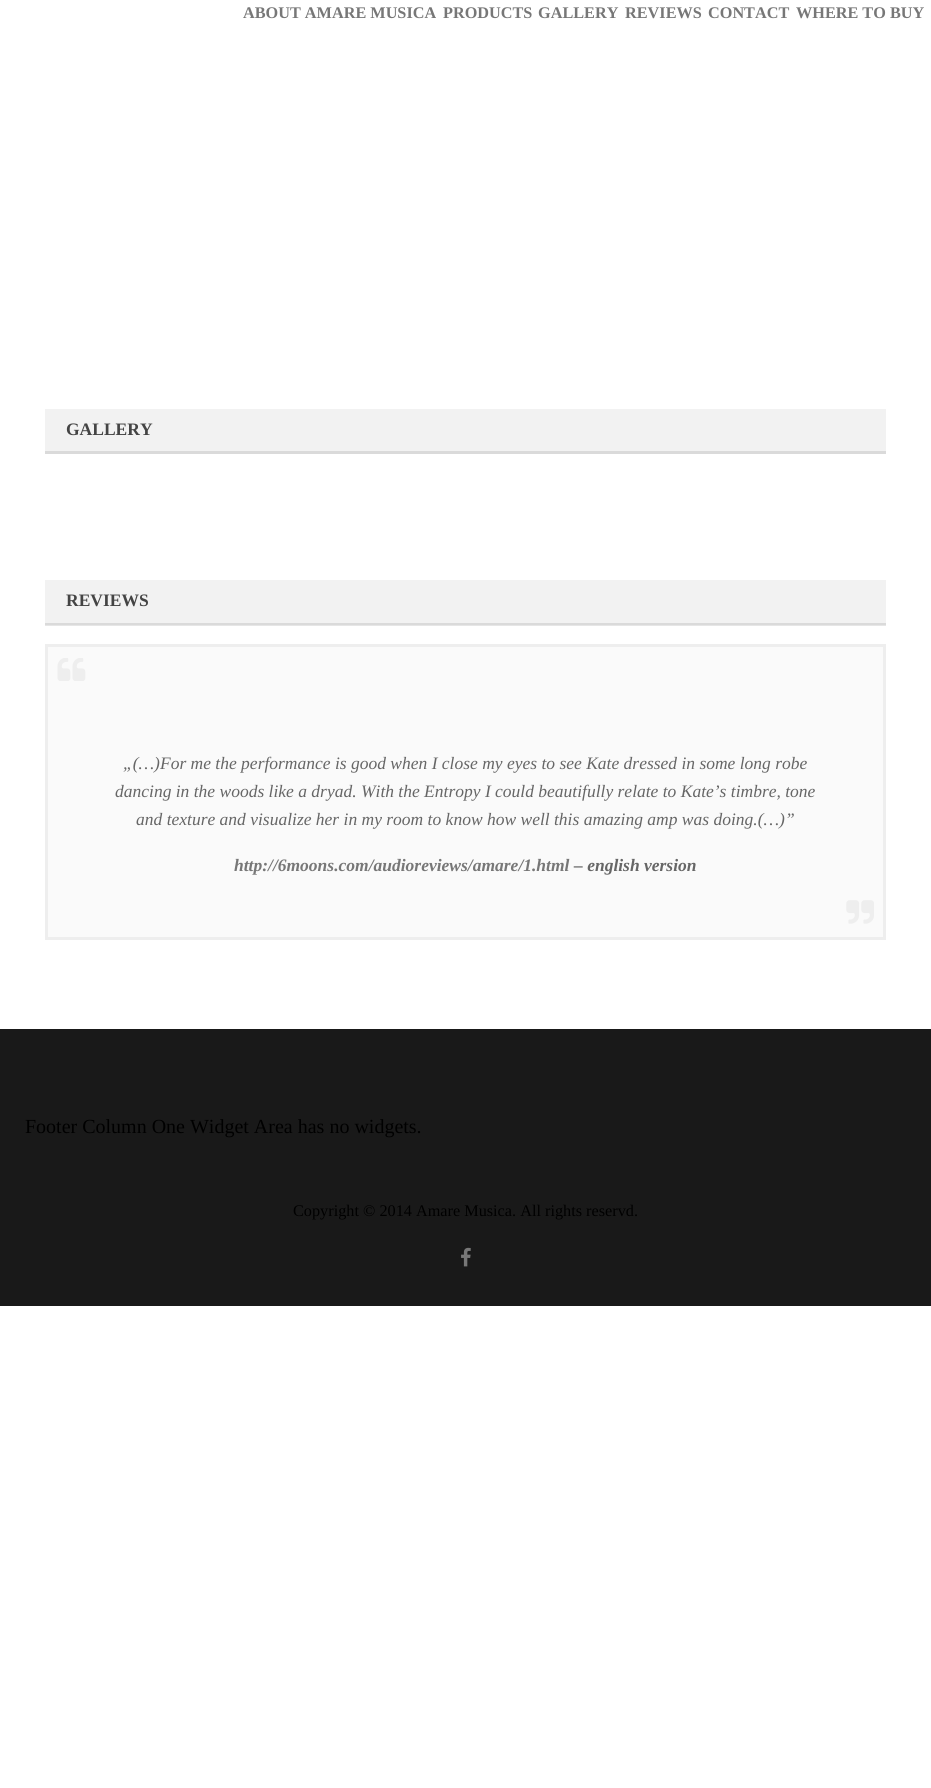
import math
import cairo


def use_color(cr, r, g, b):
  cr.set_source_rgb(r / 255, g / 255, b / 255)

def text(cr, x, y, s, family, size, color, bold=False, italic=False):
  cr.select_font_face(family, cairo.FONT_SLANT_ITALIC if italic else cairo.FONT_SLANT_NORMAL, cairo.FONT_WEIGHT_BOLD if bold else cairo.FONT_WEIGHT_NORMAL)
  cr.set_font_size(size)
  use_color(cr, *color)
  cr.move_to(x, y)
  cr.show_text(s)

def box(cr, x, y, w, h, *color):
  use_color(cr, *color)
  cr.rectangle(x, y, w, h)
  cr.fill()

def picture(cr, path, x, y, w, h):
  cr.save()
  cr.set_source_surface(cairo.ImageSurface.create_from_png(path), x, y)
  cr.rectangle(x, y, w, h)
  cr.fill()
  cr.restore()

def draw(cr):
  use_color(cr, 255, 255, 255)
  cr.paint()
  box(cr, 45, 625, 841, 1, 230, 230, 230)
  box(cr, 45, 409, 841, 42, 242, 242, 242)
  box(cr, 45, 451, 841, 3, 218, 218, 218)
  box(cr, 45, 580, 841, 43, 242, 242, 242)
  box(cr, 45, 623, 841, 2, 218, 218, 218)
  use_color(cr, 250, 250, 250)
  cr.rectangle(46.5, 645.5, 838, 293)
  cr.fill_preserve()
  use_color(cr, 238, 238, 238)
  cr.set_line_width(3)
  cr.stroke()
  picture(cr, "img_01.png", 57, 658, 29, 23)
  picture(cr, "img_02.png", 846, 900, 28, 24)
  box(cr, 0, 1029, 931, 277, 25, 25, 25)
  picture(cr, "img_03.png", 461, 1247, 10, 20)
  text(cr, 243, 18, "ABOUT AMARE MUSICA", "Liberation Serif", 16.25, (119, 119, 119), bold=True)
  text(cr, 443, 18, "PRODUCTS", "Liberation Serif", 16.25, (119, 119, 119), bold=True)
  text(cr, 538, 18, "GALLERY", "Liberation Serif", 16.25, (119, 119, 119), bold=True)
  text(cr, 625, 18, "REVIEWS", "Liberation Serif", 16.25, (119, 119, 119), bold=True)
  text(cr, 708, 18, "CONTACT", "Liberation Serif", 16.25, (119, 119, 119), bold=True)
  text(cr, 796, 18, "WHERE TO BUY", "Liberation Serif", 16.25, (119, 119, 119), bold=True)
  text(cr, 66, 435, "GALLERY", "Liberation Serif", 17.5, (68, 68, 68), bold=True)
  text(cr, 66, 606, "REVIEWS", "Liberation Serif", 17.5, (68, 68, 68), bold=True)
  text(cr, 123, 769, "„(…)For me the performance is good when I close my eyes to see Kate dressed in some long robe", "Liberation Serif", 17.5, (102, 102, 102), italic=True)
  text(cr, 115, 797, "dancing in the woods like a dryad. With the Entropy I could beautifully relate to Kate’s timbre, tone", "Liberation Serif", 17.5, (102, 102, 102), italic=True)
  text(cr, 136, 825, "and texture and visualize her in my room to know how well this amazing amp was doing.(…)”", "Liberation Serif", 17.5, (102, 102, 102), italic=True)
  text(cr, 234, 871, "http://6moons.com/audioreviews/amare/1.html", "Liberation Serif", 17.5, (119, 119, 119), bold=True, italic=True)
  text(cr, 574, 871, "– english version", "Liberation Serif", 17.5, (102, 102, 102), bold=True, italic=True)
  text(cr, 25, 1133, "Footer Column One Widget Area has no widgets.", "Liberation Serif", 20, (0, 0, 0))
  text(cr, 293, 1216, "Copyright © 2014 Amare Musica. All rights reservd.", "Liberation Serif", 16.25, (0, 0, 0))


surface = cairo.ImageSurface(cairo.FORMAT_RGB24, 931, 1788)
cr = cairo.Context(surface)
options = cairo.FontOptions()
options.set_hint_metrics(cairo.HINT_METRICS_OFF)
options.set_hint_style(cairo.HINT_STYLE_NONE)
cr.set_font_options(options)
cr.set_miter_limit(4)
draw(cr)
surface.write_to_png("out.png")
